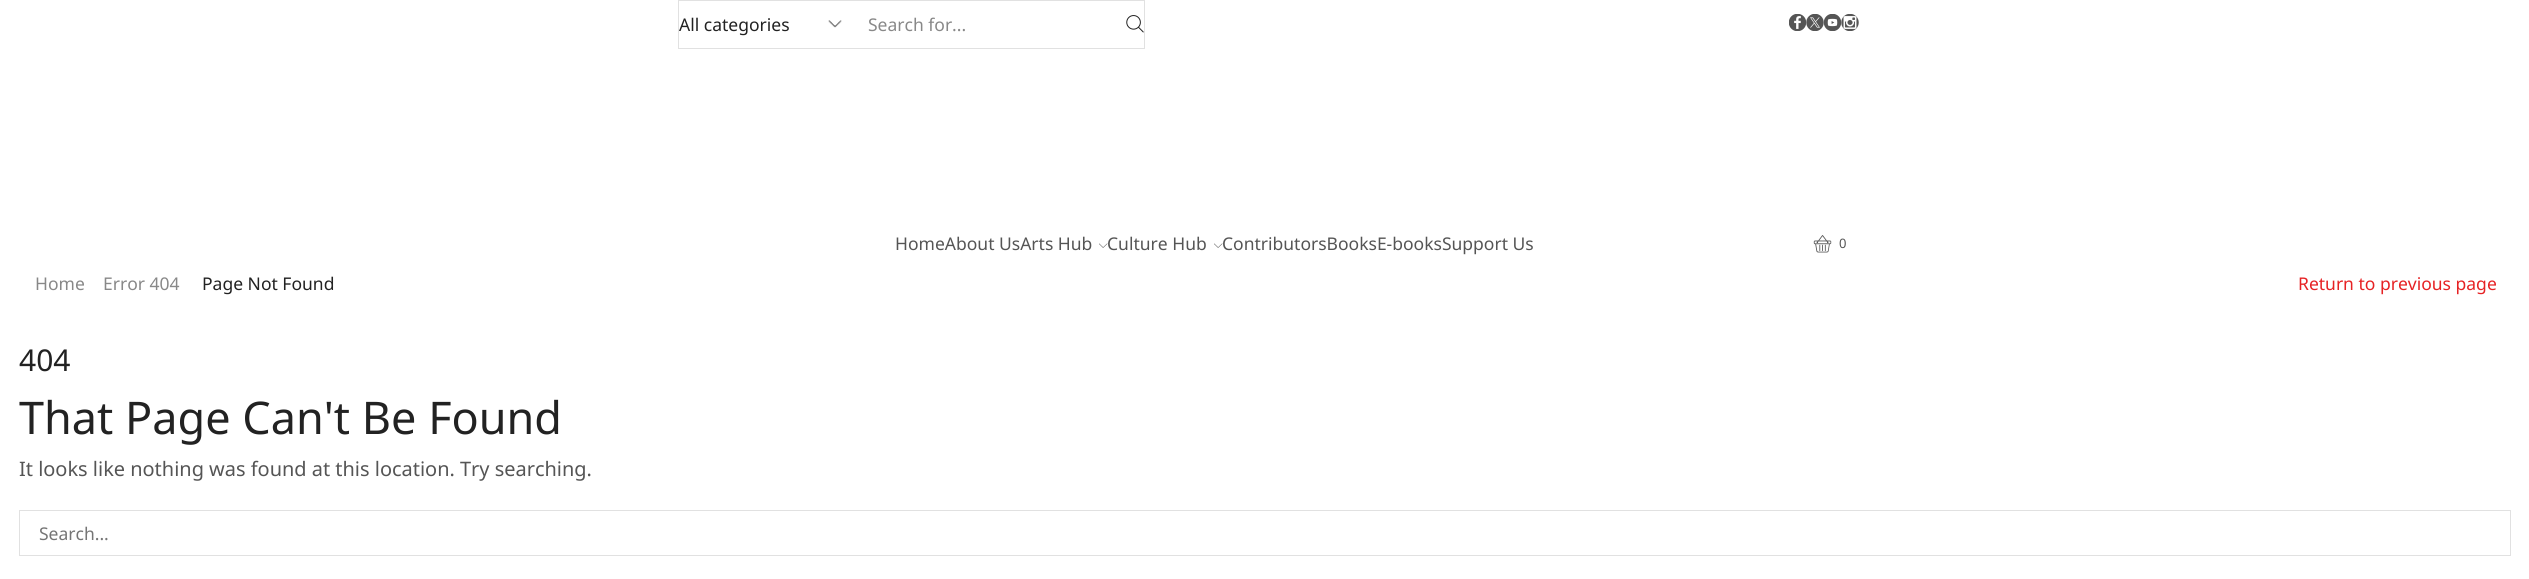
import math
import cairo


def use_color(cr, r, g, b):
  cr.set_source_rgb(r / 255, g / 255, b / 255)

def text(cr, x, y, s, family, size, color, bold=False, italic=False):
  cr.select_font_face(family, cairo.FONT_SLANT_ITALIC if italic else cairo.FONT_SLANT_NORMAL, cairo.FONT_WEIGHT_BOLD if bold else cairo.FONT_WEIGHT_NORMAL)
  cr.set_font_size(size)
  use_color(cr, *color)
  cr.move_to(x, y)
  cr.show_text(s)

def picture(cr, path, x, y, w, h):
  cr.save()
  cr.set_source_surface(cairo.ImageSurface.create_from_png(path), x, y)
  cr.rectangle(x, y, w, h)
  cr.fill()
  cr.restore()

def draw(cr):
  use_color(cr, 255, 255, 255)
  cr.paint()
  cr.rectangle(678.5, 0.5, 466, 48)
  use_color(cr, 225, 225, 225)
  cr.set_line_width(1)
  cr.stroke()
  picture(cr, "img_01.png", 828, 20, 14, 8)
  picture(cr, "img_02.png", 1126, 15, 18, 18)
  picture(cr, "img_03.png", 1789, 14, 17, 17)
  picture(cr, "img_04.png", 1806, 14, 18, 17)
  picture(cr, "img_05.png", 1824, 14, 17, 17)
  picture(cr, "img_06.png", 1841, 14, 18, 17)
  picture(cr, "img_07.png", 1099, 243, 9, 5)
  picture(cr, "img_07.png", 1214, 243, 9, 5)
  picture(cr, "img_08.png", 1813, 235, 19, 18)
  cr.rectangle(19.5, 510.5, 2491, 45)
  cr.stroke()
  text(cr, 679, 31, "All categories", "Noto Sans", 17.5, (34, 34, 34))
  text(cr, 868, 31, "Search for...", "Noto Sans", 17.5, (136, 136, 136))
  text(cr, 895, 250, "HomeAbout UsArts Hub", "Noto Sans", 17.5, (85, 85, 85))
  text(cr, 1107, 250, "Culture Hub", "Noto Sans", 17.5, (85, 85, 85))
  text(cr, 1222, 250, "ContributorsBooksE-booksSupport Us", "Noto Sans", 17.5, (85, 85, 85))
  text(cr, 1839, 248, "0", "Noto Sans", 13, (85, 85, 85))
  text(cr, 35, 290, "Home", "Noto Sans", 17.5, (136, 136, 136))
  text(cr, 103, 290, "Error 404", "Noto Sans", 17.5, (136, 136, 136))
  text(cr, 202, 290, "Page Not Found", "Noto Sans", 17.5, (34, 34, 34))
  text(cr, 2298, 290, "Return to previous page", "Noto Sans", 17.5, (230, 34, 36))
  text(cr, 19, 371, "404", "Noto Sans", 30, (34, 34, 34))
  text(cr, 19, 434, "That Page Can't Be Found", "Noto Sans", 45, (34, 34, 34))
  text(cr, 19, 476, "It looks like nothing was found at this location. Try searching.", "Noto Sans", 19.95, (85, 85, 85))
  text(cr, 39, 540, "Search...", "Noto Sans", 17.5, (117, 117, 117))


surface = cairo.ImageSurface(cairo.FORMAT_RGB24, 2529, 579)
cr = cairo.Context(surface)
options = cairo.FontOptions()
options.set_hint_metrics(cairo.HINT_METRICS_OFF)
options.set_hint_style(cairo.HINT_STYLE_NONE)
cr.set_font_options(options)
cr.set_miter_limit(4)
draw(cr)
surface.write_to_png("out.png")
